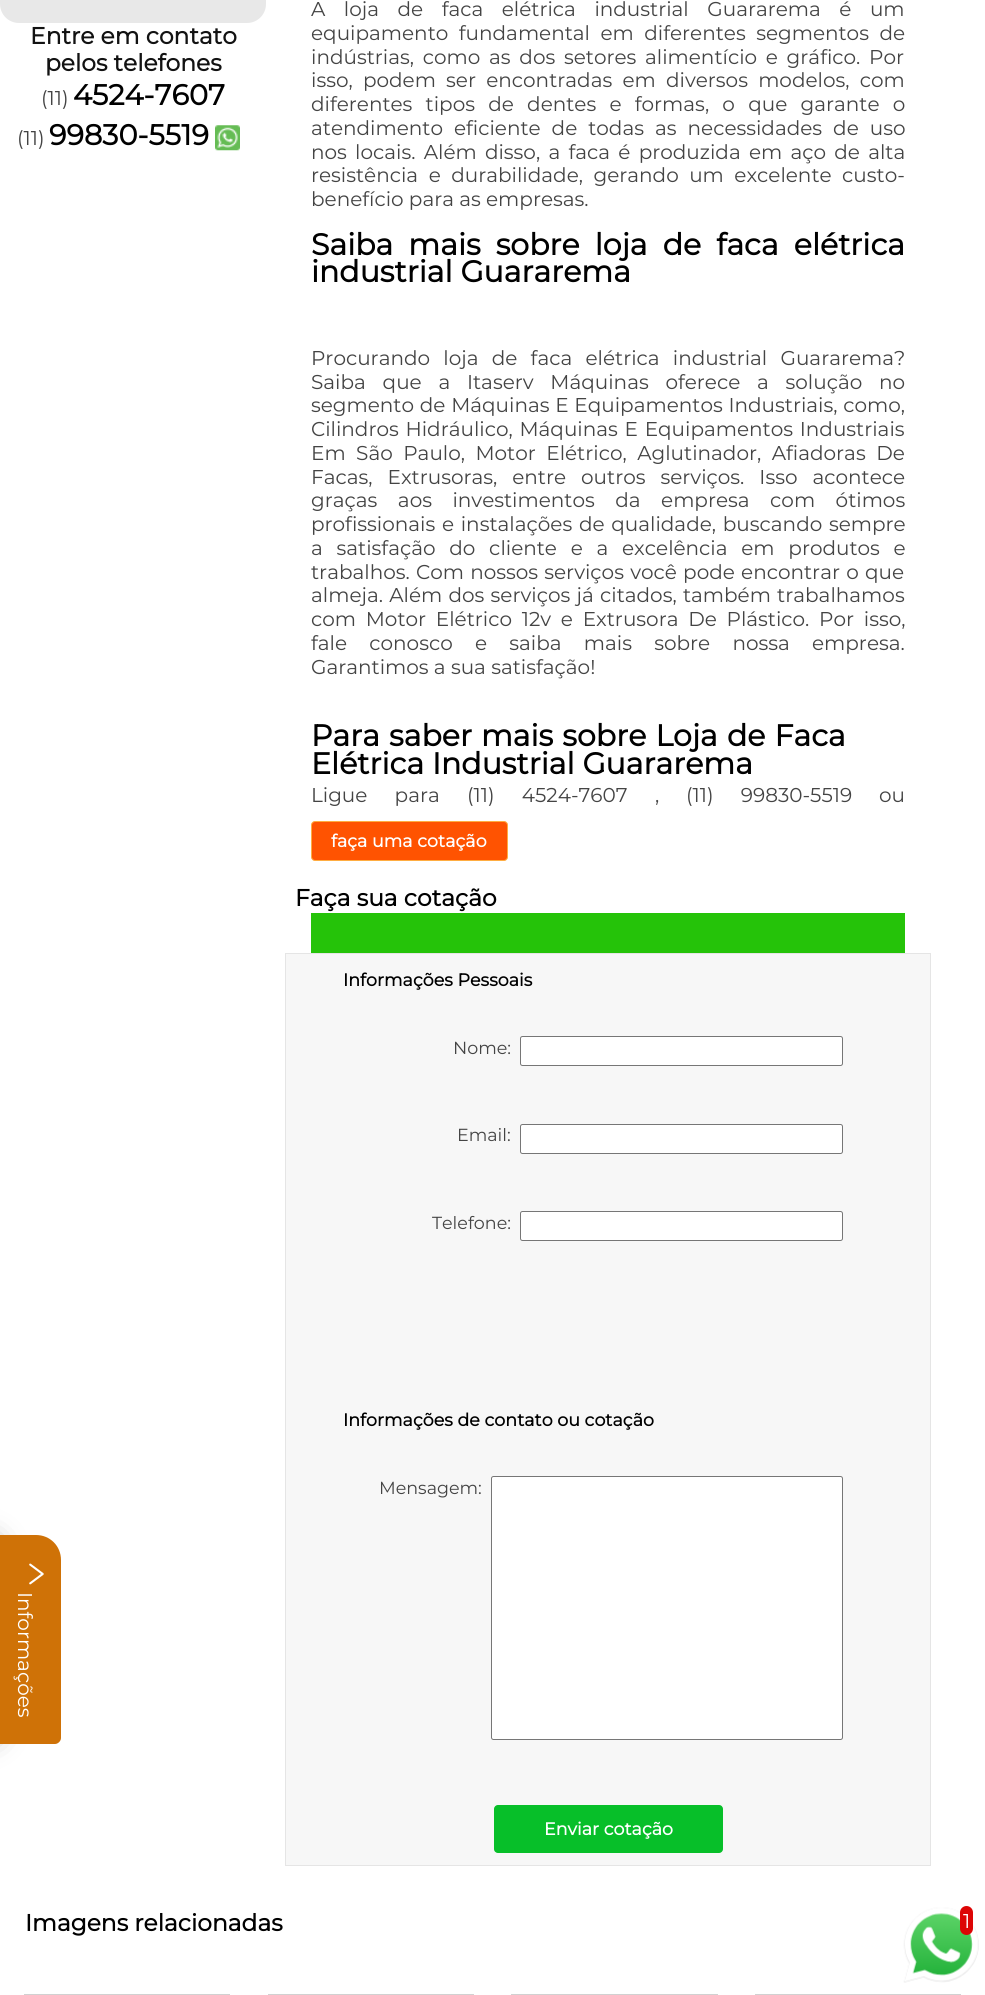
import math
import cairo


def use_color(cr, r, g, b):
  cr.set_source_rgb(r / 255, g / 255, b / 255)

def text(cr, x, y, s, family, size, color, bold=False, italic=False):
  cr.select_font_face(family, cairo.FONT_SLANT_ITALIC if italic else cairo.FONT_SLANT_NORMAL, cairo.FONT_WEIGHT_BOLD if bold else cairo.FONT_WEIGHT_NORMAL)
  cr.set_font_size(size)
  use_color(cr, *color)
  cr.move_to(x, y)
  cr.show_text(s)

def spaced_text(cr, x, y, s, letter, word):
  cr.move_to(x, y)
  for ch in s:
    cr.show_text(ch)
    cr.rel_move_to(letter + word * (ch == ' '), 0)

def box(cr, x, y, w, h, *color):
  use_color(cr, *color)
  cr.rectangle(x, y, w, h)
  cr.fill()

def round_rect(cr, x, y, w, h, r):
  cr.new_sub_path()
  for i, (u, v) in enumerate([(x + w - r, y + h - r), (x + r, y + h - r), (x + r, y + r), (x + w - r, y + r)]):
    cr.arc(u, v, r, i * math.pi / 2, (i + 1) * math.pi / 2)
  cr.close_path()

def shadow(cr, x, y, w, h, r, blur, alpha):
  cr.push_group_with_content(cairo.CONTENT_ALPHA)
  cr.set_operator(cairo.OPERATOR_SOURCE)
  for i in range(15, -16, -2):
    e = blur * i / 6
    if min(w, h) + 2 * e > 0:
      cr.set_source_rgba(0, 0, 0, alpha * math.erfc((i - 1) / 8.5) / 2)
      round_rect(cr, x - e, y - e, w + 2 * e, h + 2 * e, max(0, min(r + e + blur * .6, min(w, h) / 2 + e)))
      cr.fill()
  cr.mask(cr.pop_group())

def picture(cr, path, x, y, w, h):
  cr.save()
  cr.set_source_surface(cairo.ImageSurface.create_from_png(path), x, y)
  cr.rectangle(x, y, w, h)
  cr.fill()
  cr.restore()

def draw(cr):
  use_color(cr, 255, 255, 255)
  cr.paint()
  use_color(cr, 232, 232, 232)
  cr.new_path()
  cr.move_to(0, -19)
  cr.line_to(266, -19)
  cr.line_to(266, 4)
  cr.curve_to(266, 14.5, 257.5, 23, 247, 23)
  cr.line_to(19, 23)
  cr.curve_to(8.5, 23, 0, 14.5, 0, 4)
  cr.close_path()
  cr.fill()
  picture(cr, "img_01.png", 215, 125, 25, 26)
  use_color(cr, 255, 83, 1)
  round_rect(cr, 311.5, 821.5, 196, 39, 3.5)
  cr.fill_preserve()
  use_color(cr, 255, 173, 65)
  cr.set_line_width(1)
  cr.stroke()
  box(cr, 311, 913, 594, 40, 37, 195, 9)
  use_color(cr, 247, 247, 247)
  cr.rectangle(285.5, 953.5, 645, 912)
  cr.fill_preserve()
  use_color(cr, 229, 229, 229)
  cr.stroke()
  use_color(cr, 255, 255, 255)
  round_rect(cr, 520.5, 1036.5, 322, 29, 2)
  cr.fill_preserve()
  use_color(cr, 118, 118, 118)
  cr.stroke()
  use_color(cr, 255, 255, 255)
  round_rect(cr, 520.5, 1124.5, 322, 29, 2)
  cr.fill_preserve()
  use_color(cr, 118, 118, 118)
  cr.stroke()
  use_color(cr, 255, 255, 255)
  round_rect(cr, 520.5, 1211.5, 322, 29, 2)
  cr.fill_preserve()
  use_color(cr, 118, 118, 118)
  cr.stroke()
  use_color(cr, 255, 255, 255)
  round_rect(cr, 491.5, 1476.5, 351, 263, 2)
  cr.fill_preserve()
  use_color(cr, 118, 118, 118)
  cr.stroke()
  use_color(cr, 7, 191, 41)
  round_rect(cr, 494, 1805, 229, 48, 4)
  cr.fill()
  cr.rectangle(24.5, 1994.5, 205, 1)
  use_color(cr, 209, 209, 209)
  cr.stroke()
  cr.rectangle(268.5, 1994.5, 205, 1)
  cr.stroke()
  cr.rectangle(511.5, 1994.5, 206, 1)
  cr.stroke()
  cr.rectangle(755.5, 1994.5, 205, 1)
  cr.stroke()
  use_color(cr, 133, 133, 133)
  shadow(cr, -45, 1544, 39, 190, 0, 15, 1)
  use_color(cr, 207, 114, 7)
  cr.new_path()
  cr.move_to(61, 1560)
  cr.line_to(61, 1738)
  cr.curve_to(61, 1741, 58, 1744, 55, 1744)
  cr.line_to(0, 1744)
  cr.line_to(0, 1535)
  cr.line_to(36, 1535)
  cr.curve_to(50, 1535, 61, 1546, 61, 1560)
  cr.close_path()
  cr.fill()
  picture(cr, "img_02.png", 29, 1563, 15, 22)
  picture(cr, "img_03.png", 903, 1907, 76, 76)
  use_color(cr, 221, 5, 5)
  round_rect(cr, 960, 1906, 13, 29, 6.5)
  cr.fill()
  text(cr, 30, 44, "Entre em contato", "Montserrat", 23.4, (18, 18, 18), bold=True)
  text(cr, 45, 71, "pelos telefones", "Montserrat", 23.4, (18, 18, 18), bold=True)
  text(cr, 41, 105, "(11)", "Montserrat Thin", 20, (68, 68, 68))
  text(cr, 73, 105, "4524-7607", "Montserrat", 28.75, (0, 0, 0), bold=True)
  text(cr, 17, 145, "(11)", "Montserrat Thin", 20, (68, 68, 68))
  text(cr, 49, 145, "99830-5519", "Montserrat", 28.75, (0, 0, 0), bold=True)
  cr.select_font_face("Montserrat Thin")
  cr.set_font_size(20)
  use_color(cr, 68, 68, 68)
  spaced_text(cr, 311, 16, "A loja de faca elétrica industrial Guararema é um", 0, 13.25)
  spaced_text(cr, 311, 40, "equipamento fundamental em diferentes segmentos de", 0, 5.25)
  spaced_text(cr, 311, 64, "indústrias, como as dos setores alimentício e gráfico. Por", 0, 3.5)
  spaced_text(cr, 311, 87, "isso, podem ser encontradas em diversos modelos, com", 0, 5)
  spaced_text(cr, 311, 111, "diferentes tipos de dentes e formas, o que garante o", 0, 8)
  spaced_text(cr, 311, 135, "atendimento eficiente de todas as necessidades de uso", 0, 5.75)
  spaced_text(cr, 311, 159, "nos locais. Além disso, a faca é produzida em aço de alta", 0, 3)
  spaced_text(cr, 311, 182, "resistência e durabilidade, gerando um excelente custo-", 0, 5.25)
  text(cr, 311, 206, "benefício para as empresas.", "Montserrat Thin", 20, (68, 68, 68))
  cr.select_font_face("Montserrat", cairo.FONT_SLANT_NORMAL, cairo.FONT_WEIGHT_BOLD)
  cr.set_font_size(30)
  use_color(cr, 0, 0, 0)
  spaced_text(cr, 311, 255, "Saiba mais sobre loja de faca elétrica", 0, 7.25)
  text(cr, 311, 282, "industrial Guararema", "Montserrat", 30, (0, 0, 0), bold=True)
  cr.select_font_face("Montserrat Thin")
  cr.set_font_size(20)
  use_color(cr, 68, 68, 68)
  spaced_text(cr, 311, 365, "Procurando loja de faca elétrica industrial Guararema?", 0, 8)
  spaced_text(cr, 311, 389, "Saiba que a Itaserv Máquinas oferece a solução no", 0, 11.5)
  spaced_text(cr, 311, 412, "segmento de Máquinas E Equipamentos Industriais, como,", 0, 0.5)
  spaced_text(cr, 311, 436, "Cilindros Hidráulico, Máquinas E Equipamentos Industriais", 0, 1.5)
  spaced_text(cr, 311, 460, "Em São Paulo, Motor Elétrico, Aglutinador, Afiadoras De", 0, 5.25)
  spaced_text(cr, 311, 484, "Facas, Extrusoras, entre outros serviços. Isso acontece", 0, 9.75)
  spaced_text(cr, 311, 507, "graças aos investimentos da empresa com ótimos", 0, 15.25)
  spaced_text(cr, 311, 531, "profissionais e instalações de qualidade, buscando sempre", 0, 1.5)
  spaced_text(cr, 311, 555, "a satisfação do cliente e a excelência em produtos e", 0, 8.5)
  spaced_text(cr, 311, 579, "trabalhos. Com nossos serviços você pode encontrar o que", 0, 1)
  spaced_text(cr, 311, 602, "almeja. Além dos serviços já citados, também trabalhamos", 0, 1)
  spaced_text(cr, 311, 626, "com Motor Elétrico 12v e Extrusora De Plástico. Por isso,", 0, 4.5)
  spaced_text(cr, 311, 650, "fale conosco e saiba mais sobre nossa empresa.", 0, 17)
  text(cr, 311, 674, "Garantimos a sua satisfação!", "Montserrat Thin", 20, (68, 68, 68))
  cr.select_font_face("Montserrat", cairo.FONT_SLANT_NORMAL, cairo.FONT_WEIGHT_BOLD)
  cr.set_font_size(30)
  use_color(cr, 0, 0, 0)
  spaced_text(cr, 311, 746, "Para saber mais sobre Loja de Faca", 0, 1.25)
  text(cr, 311, 774, "Elétrica Industrial Guararema", "Montserrat", 30, (0, 0, 0), bold=True)
  cr.select_font_face("Montserrat Thin")
  cr.set_font_size(20)
  use_color(cr, 68, 68, 68)
  spaced_text(cr, 311, 802, "Ligue para", 0, 22)
  spaced_text(cr, 467, 802, "(11) 4524-7607", 0, 22)
  text(cr, 655, 802, ",", "Montserrat Thin", 20, (68, 68, 68))
  spaced_text(cr, 686, 802, "(11) 99830-5519", 0, 22)
  text(cr, 879, 802, "ou", "Montserrat Thin", 20, (68, 68, 68))
  text(cr, 331, 847, "faça uma cotação", "Montserrat", 17.5, (255, 255, 255), bold=True)
  text(cr, 295, 906, "Faça sua cotação", "Montserrat", 23.4, (0, 0, 0), bold=True)
  text(cr, 343, 986, "Informações Pessoais", "Montserrat", 17.5, (0, 0, 0), bold=True)
  text(cr, 453, 1054, "Nome:", "Montserrat Thin", 17.5, (68, 68, 68))
  text(cr, 457, 1141, "Email:", "Montserrat Thin", 17.5, (68, 68, 68))
  text(cr, 432, 1229, "Telefone:", "Montserrat Thin", 17.5, (68, 68, 68))
  text(cr, 343, 1426, "Informações de contato ou cotação", "Montserrat", 17.5, (0, 0, 0), bold=True)
  text(cr, 379, 1494, "Mensagem:", "Montserrat Thin", 17.5, (68, 68, 68))
  text(cr, 544, 1835, "Enviar cotação", "Montserrat", 17.5, (255, 255, 255), bold=True)
  text(cr, 25, 1931, "Imagens relacionadas", "Montserrat", 23.4, (0, 0, 0), bold=True)
  cr.save()
  cr.translate(18, 1592)
  cr.rotate(90 * math.pi / 180)
  text(cr, 0, 0, "Informações", "Montserrat Thin", 20, (255, 255, 255))
  cr.restore()
  text(cr, 963, 1928, "1", "Montserrat Thin", 20, (255, 255, 255))


surface = cairo.ImageSurface(cairo.FORMAT_RGB24, 985, 1995)
cr = cairo.Context(surface)
options = cairo.FontOptions()
options.set_hint_metrics(cairo.HINT_METRICS_OFF)
options.set_hint_style(cairo.HINT_STYLE_NONE)
cr.set_font_options(options)
cr.set_miter_limit(4)
draw(cr)
surface.write_to_png("out.png")
